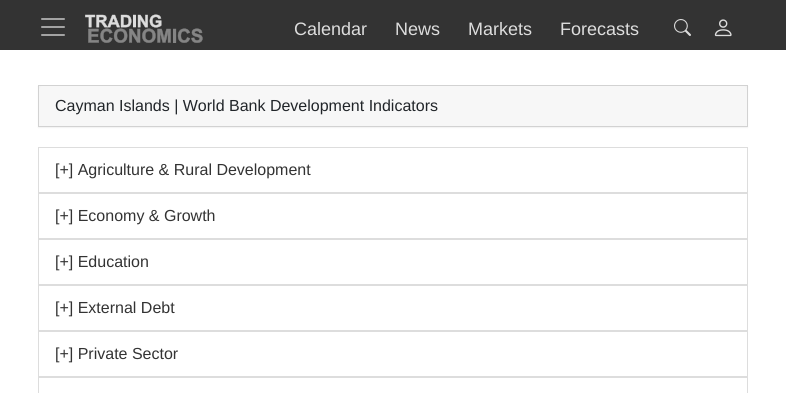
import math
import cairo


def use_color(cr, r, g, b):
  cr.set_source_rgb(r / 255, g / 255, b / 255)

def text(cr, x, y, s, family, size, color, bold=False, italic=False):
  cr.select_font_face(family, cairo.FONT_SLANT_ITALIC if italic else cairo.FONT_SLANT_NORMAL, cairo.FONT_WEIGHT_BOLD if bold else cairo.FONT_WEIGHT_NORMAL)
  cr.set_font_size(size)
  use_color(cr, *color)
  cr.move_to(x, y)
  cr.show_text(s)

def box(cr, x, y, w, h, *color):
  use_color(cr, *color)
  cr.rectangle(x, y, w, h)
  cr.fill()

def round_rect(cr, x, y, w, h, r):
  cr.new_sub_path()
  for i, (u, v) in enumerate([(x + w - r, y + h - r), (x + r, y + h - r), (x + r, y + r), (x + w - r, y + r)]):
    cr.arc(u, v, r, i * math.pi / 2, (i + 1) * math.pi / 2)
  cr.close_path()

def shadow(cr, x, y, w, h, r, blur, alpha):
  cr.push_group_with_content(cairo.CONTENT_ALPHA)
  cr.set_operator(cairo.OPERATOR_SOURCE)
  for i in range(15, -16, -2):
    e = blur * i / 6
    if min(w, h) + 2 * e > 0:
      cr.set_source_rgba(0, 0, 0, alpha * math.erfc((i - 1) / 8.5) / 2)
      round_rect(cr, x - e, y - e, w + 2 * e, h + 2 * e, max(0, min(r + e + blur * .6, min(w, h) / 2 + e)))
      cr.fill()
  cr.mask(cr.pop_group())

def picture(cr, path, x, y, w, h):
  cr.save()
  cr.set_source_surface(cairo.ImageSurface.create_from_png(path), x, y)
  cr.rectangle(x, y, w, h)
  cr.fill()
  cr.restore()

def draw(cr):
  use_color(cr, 255, 255, 255)
  cr.paint()
  box(cr, 0, 0, 786, 50, 51, 51, 51)
  picture(cr, "img_01.png", 41, 18, 24, 18)
  picture(cr, "img_02.png", 85, 14, 118, 29)
  picture(cr, "img_03.png", 674, 19, 17, 17)
  picture(cr, "img_04.png", 714, 19, 18, 18)
  use_color(cr, 0, 0, 0)
  shadow(cr, 38, 86, 710, 42, 0, 0.5, 0.05)
  cr.rectangle(38.5, 85.5, 709, 41)
  use_color(cr, 210, 210, 210)
  cr.set_line_width(1)
  cr.stroke()
  use_color(cr, 247, 247, 247)
  cr.new_path()
  cr.move_to(44, 86)
  cr.line_to(742, 86)
  cr.curve_to(745, 86, 747, 88, 747, 91)
  cr.line_to(747, 126)
  cr.line_to(39, 126)
  cr.line_to(39, 91)
  cr.curve_to(39, 88, 41, 86, 44, 86)
  cr.close_path()
  cr.fill()
  cr.rectangle(38.5, 147.5, 709, 45)
  use_color(cr, 221, 221, 221)
  cr.stroke()
  cr.rectangle(38.5, 193.5, 709, 45)
  cr.stroke()
  cr.rectangle(38.5, 239.5, 709, 45)
  cr.stroke()
  cr.rectangle(38.5, 285.5, 709, 45)
  cr.stroke()
  cr.rectangle(38.5, 331.5, 709, 45)
  cr.stroke()
  cr.rectangle(38.5, 377.5, 709, 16)
  cr.stroke()
  text(cr, 294, 35, "Calendar", "Liberation Sans", 18, (221, 221, 221))
  text(cr, 395, 35, "News", "Liberation Sans", 18, (221, 221, 221))
  text(cr, 468, 35, "Markets", "Liberation Sans", 18, (221, 221, 221))
  text(cr, 560, 35, "Forecasts", "Liberation Sans", 18, (221, 221, 221))
  text(cr, 55, 111, "Cayman Islands | World Bank Development Indicators", "Liberation Sans", 16, (33, 37, 41))
  text(cr, 55, 175, "[+] Agriculture & Rural Development", "Liberation Sans", 16, (51, 51, 51))
  text(cr, 55, 221, "[+] Economy & Growth", "Liberation Sans", 16, (51, 51, 51))
  text(cr, 55, 267, "[+] Education", "Liberation Sans", 16, (51, 51, 51))
  text(cr, 55, 313, "[+] External Debt", "Liberation Sans", 16, (51, 51, 51))
  text(cr, 55, 359, "[+] Private Sector", "Liberation Sans", 16, (51, 51, 51))


surface = cairo.ImageSurface(cairo.FORMAT_RGB24, 786, 393)
cr = cairo.Context(surface)
options = cairo.FontOptions()
options.set_hint_metrics(cairo.HINT_METRICS_OFF)
options.set_hint_style(cairo.HINT_STYLE_NONE)
cr.set_font_options(options)
cr.set_miter_limit(4)
draw(cr)
surface.write_to_png("out.png")
